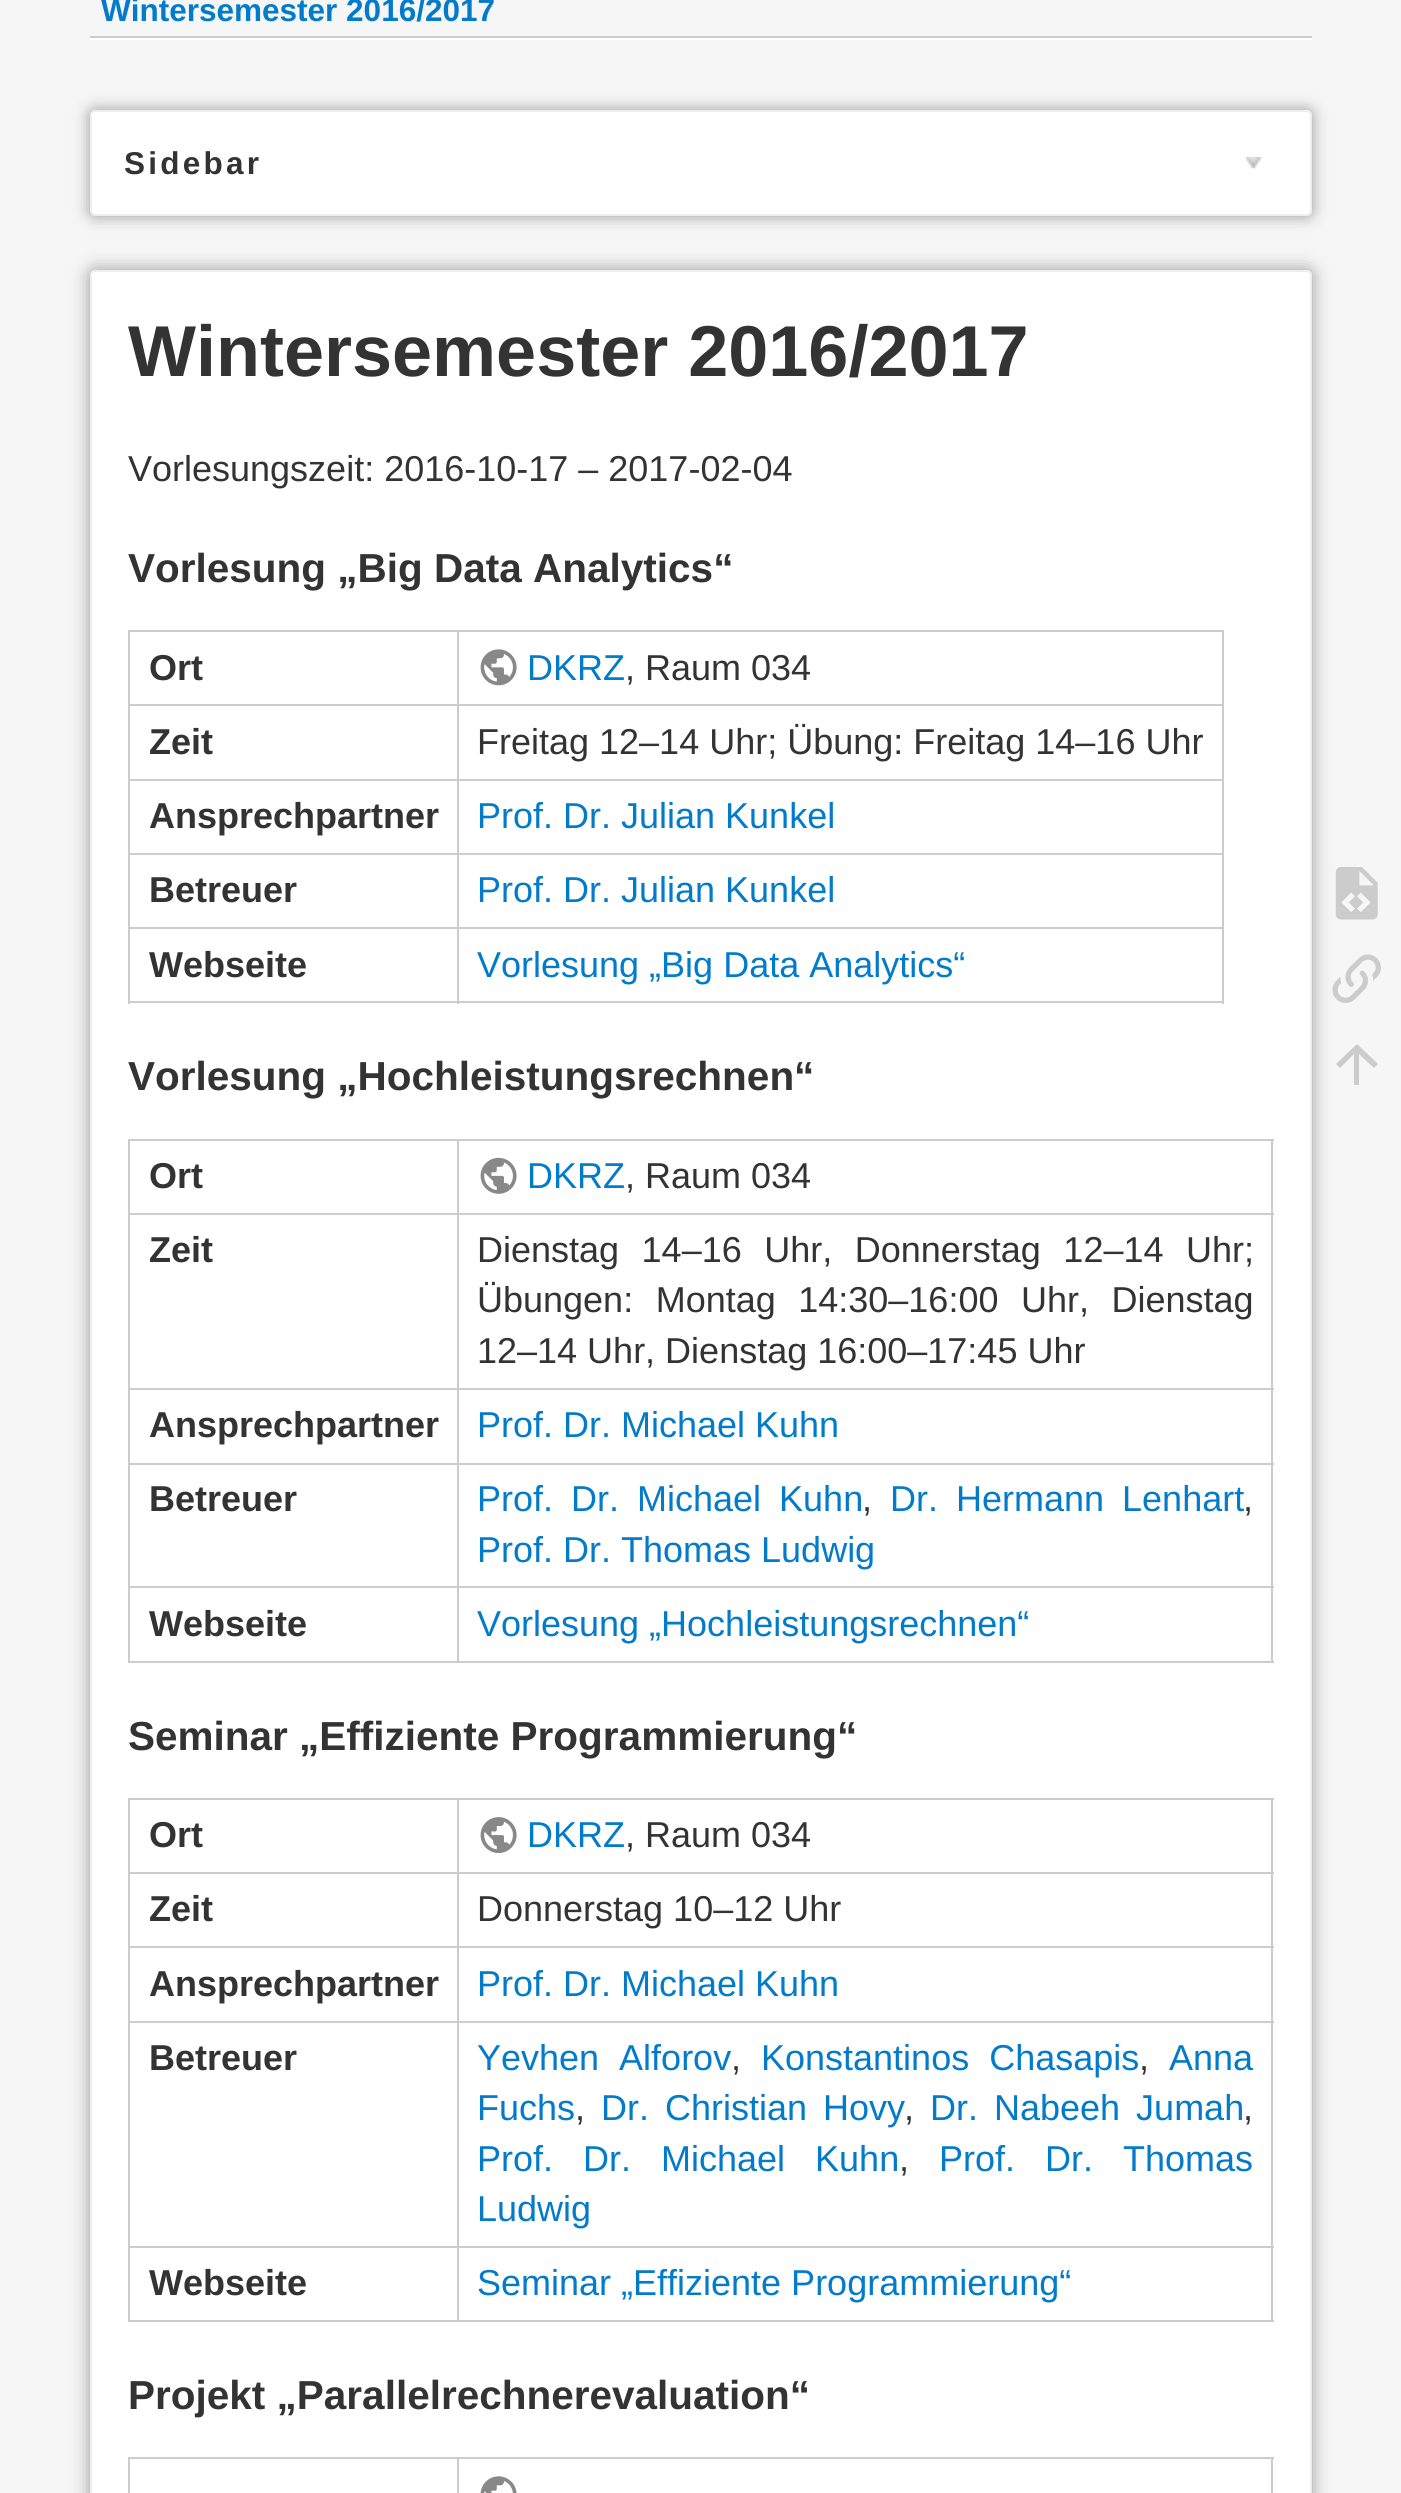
import math
import cairo


def use_color(cr, r, g, b):
  cr.set_source_rgb(r / 255, g / 255, b / 255)

def text(cr, x, y, s, family, size, color, bold=False, italic=False):
  cr.select_font_face(family, cairo.FONT_SLANT_ITALIC if italic else cairo.FONT_SLANT_NORMAL, cairo.FONT_WEIGHT_BOLD if bold else cairo.FONT_WEIGHT_NORMAL)
  cr.set_font_size(size)
  use_color(cr, *color)
  cr.move_to(x, y)
  cr.show_text(s)

def spaced_text(cr, x, y, s, letter, word):
  cr.move_to(x, y)
  for ch in s:
    cr.show_text(ch)
    cr.rel_move_to(letter + word * (ch == ' '), 0)

def box(cr, x, y, w, h, *color):
  use_color(cr, *color)
  cr.rectangle(x, y, w, h)
  cr.fill()

def round_rect(cr, x, y, w, h, r):
  cr.new_sub_path()
  for i, (u, v) in enumerate([(x + w - r, y + h - r), (x + r, y + h - r), (x + r, y + r), (x + w - r, y + r)]):
    cr.arc(u, v, r, i * math.pi / 2, (i + 1) * math.pi / 2)
  cr.close_path()

def shadow(cr, x, y, w, h, r, blur, alpha):
  cr.push_group_with_content(cairo.CONTENT_ALPHA)
  cr.set_operator(cairo.OPERATOR_SOURCE)
  for i in range(15, -16, -2):
    e = blur * i / 6
    if min(w, h) + 2 * e > 0:
      cr.set_source_rgba(0, 0, 0, alpha * math.erfc((i - 1) / 8.5) / 2)
      round_rect(cr, x - e, y - e, w + 2 * e, h + 2 * e, max(0, min(r + e + blur * .6, min(w, h) / 2 + e)))
      cr.fill()
  cr.mask(cr.pop_group())

def picture(cr, path, x, y, w, h):
  cr.save()
  cr.set_source_surface(cairo.ImageSurface.create_from_png(path), x, y)
  cr.rectangle(x, y, w, h)
  cr.fill()
  cr.restore()

def draw(cr):
  use_color(cr, 246, 246, 246)
  cr.paint()
  box(cr, 90, 38, 1222, 2, 255, 255, 255)
  box(cr, 90, 36, 1222, 2, 204, 204, 204)
  use_color(cr, 153, 153, 153)
  shadow(cr, 90, 110, 1222, 106, 5, 8, 1)
  use_color(cr, 255, 255, 255)
  round_rect(cr, 91, 111, 1220, 104, 4)
  cr.fill_preserve()
  use_color(cr, 238, 238, 238)
  cr.stroke()
  picture(cr, "img_01.png", 1244, 157, 18, 12)
  use_color(cr, 153, 153, 153)
  shadow(cr, 90, 270, 1222, 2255, 5, 9, 1)
  use_color(cr, 255, 255, 255)
  round_rect(cr, 91, 271, 1220, 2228, 4)
  cr.fill_preserve()
  use_color(cr, 238, 238, 238)
  cr.stroke()
  box(cr, 128, 630, 1096, 2, 204, 204, 204)
  box(cr, 1222, 630, 2, 374, 204, 204, 204)
  box(cr, 128, 1001, 1096, 2, 204, 204, 204)
  box(cr, 128, 630, 2, 374, 204, 204, 204)
  box(cr, 457, 704, 767, 2, 204, 204, 204)
  box(cr, 457, 779, 767, 2, 204, 204, 204)
  box(cr, 457, 853, 767, 2, 204, 204, 204)
  box(cr, 457, 927, 767, 2, 204, 204, 204)
  box(cr, 457, 927, 2, 77, 204, 204, 204)
  box(cr, 128, 927, 331, 2, 204, 204, 204)
  box(cr, 457, 853, 2, 76, 204, 204, 204)
  box(cr, 128, 853, 331, 2, 204, 204, 204)
  box(cr, 457, 779, 2, 76, 204, 204, 204)
  box(cr, 128, 779, 331, 2, 204, 204, 204)
  box(cr, 457, 704, 2, 77, 204, 204, 204)
  box(cr, 128, 704, 331, 2, 204, 204, 204)
  box(cr, 457, 630, 2, 77, 204, 204, 204)
  picture(cr, "img_02.png", 480, 649, 37, 37)
  box(cr, 128, 1139, 1146, 2, 204, 204, 204)
  box(cr, 1271, 1139, 2, 524, 204, 204, 204)
  box(cr, 128, 1661, 1146, 2, 204, 204, 204)
  box(cr, 128, 1139, 2, 524, 204, 204, 204)
  box(cr, 457, 1213, 817, 2, 204, 204, 204)
  box(cr, 457, 1388, 817, 2, 204, 204, 204)
  box(cr, 457, 1463, 817, 2, 204, 204, 204)
  box(cr, 457, 1586, 817, 2, 204, 204, 204)
  box(cr, 457, 1586, 2, 77, 204, 204, 204)
  box(cr, 128, 1586, 331, 2, 204, 204, 204)
  box(cr, 457, 1463, 2, 126, 204, 204, 204)
  box(cr, 128, 1463, 331, 2, 204, 204, 204)
  box(cr, 457, 1388, 2, 77, 204, 204, 204)
  box(cr, 128, 1388, 331, 2, 204, 204, 204)
  box(cr, 457, 1213, 2, 178, 204, 204, 204)
  box(cr, 128, 1213, 331, 2, 204, 204, 204)
  box(cr, 457, 1139, 2, 76, 204, 204, 204)
  picture(cr, "img_03.png", 480, 1157, 37, 37)
  box(cr, 128, 1798, 1146, 2, 204, 204, 204)
  box(cr, 1271, 1798, 2, 524, 204, 204, 204)
  box(cr, 128, 2320, 1146, 2, 204, 204, 204)
  box(cr, 128, 1798, 2, 524, 204, 204, 204)
  box(cr, 457, 1872, 817, 2, 204, 204, 204)
  box(cr, 457, 1946, 817, 2, 204, 204, 204)
  box(cr, 457, 2021, 817, 2, 204, 204, 204)
  box(cr, 457, 2246, 817, 2, 204, 204, 204)
  box(cr, 457, 2246, 2, 76, 204, 204, 204)
  box(cr, 128, 2246, 331, 2, 204, 204, 204)
  box(cr, 457, 2021, 2, 227, 204, 204, 204)
  box(cr, 128, 2021, 331, 2, 204, 204, 204)
  box(cr, 457, 1946, 2, 77, 204, 204, 204)
  box(cr, 128, 1946, 331, 2, 204, 204, 204)
  box(cr, 457, 1872, 2, 77, 204, 204, 204)
  box(cr, 128, 1872, 331, 2, 204, 204, 204)
  box(cr, 457, 1798, 2, 76, 204, 204, 204)
  picture(cr, "img_04.png", 480, 1817, 37, 37)
  box(cr, 128, 2457, 1146, 2, 204, 204, 204)
  box(cr, 1271, 2457, 2, 36, 204, 204, 204)
  box(cr, 128, 2457, 2, 36, 204, 204, 204)
  box(cr, 457, 2457, 2, 36, 204, 204, 204)
  picture(cr, "img_05.png", 480, 2476, 37, 17)
  picture(cr, "img_06.png", 1335, 867, 43, 53)
  picture(cr, "img_07.png", 1332, 954, 49, 49)
  cr.new_path()
  cr.move_to(1359, 1085)
  cr.line_to(1354, 1085)
  cr.line_to(1354, 1054)
  cr.line_to(1340, 1068)
  cr.line_to(1336, 1064)
  cr.line_to(1357, 1044)
  cr.line_to(1378, 1064)
  cr.line_to(1374, 1068)
  cr.line_to(1359, 1054)
  cr.close_path()
  cr.fill()
  text(cr, 101, 21, "Wintersemester 2016/2017", "Liberation Sans", 31.5, (2, 123, 203), bold=True)
  use_color(cr, 51, 51, 51)
  spaced_text(cr, 124, 174, "Sidebar", 3.25, 0)
  text(cr, 128, 376, "Wintersemester 2016/2017", "Liberation Sans", 72, (51, 51, 51), bold=True)
  text(cr, 128, 481, "Vorlesungszeit: 2016-10-17 – 2017-02-04", "Liberation Sans", 36, (51, 51, 51))
  text(cr, 128, 582, "Vorlesung „Big Data Analytics“", "Liberation Sans", 40.5, (51, 51, 51), bold=True)
  text(cr, 149, 680, "Ort", "Liberation Sans", 36, (51, 51, 51), bold=True)
  text(cr, 527, 680, "DKRZ", "Liberation Sans", 36, (2, 123, 203))
  text(cr, 625, 680, ", Raum 034", "Liberation Sans", 36, (51, 51, 51))
  text(cr, 149, 754, "Zeit", "Liberation Sans", 36, (51, 51, 51), bold=True)
  text(cr, 477, 754, "Freitag 12–14 Uhr; Übung: Freitag 14–16 Uhr", "Liberation Sans", 36, (51, 51, 51))
  text(cr, 149, 828, "Ansprechpartner", "Liberation Sans", 36, (51, 51, 51), bold=True)
  text(cr, 477, 828, "Prof. Dr. Julian Kunkel", "Liberation Sans", 36, (2, 123, 203))
  text(cr, 149, 902, "Betreuer", "Liberation Sans", 36, (51, 51, 51), bold=True)
  text(cr, 477, 902, "Prof. Dr. Julian Kunkel", "Liberation Sans", 36, (2, 123, 203))
  text(cr, 149, 977, "Webseite", "Liberation Sans", 36, (51, 51, 51), bold=True)
  text(cr, 477, 977, "Vorlesung „Big Data Analytics“", "Liberation Sans", 36, (2, 123, 203))
  text(cr, 128, 1090, "Vorlesung „Hochleistungsrechnen“", "Liberation Sans", 40.5, (51, 51, 51), bold=True)
  text(cr, 149, 1188, "Ort", "Liberation Sans", 36, (51, 51, 51), bold=True)
  text(cr, 527, 1188, "DKRZ", "Liberation Sans", 36, (2, 123, 203))
  text(cr, 625, 1188, ", Raum 034", "Liberation Sans", 36, (51, 51, 51))
  text(cr, 149, 1262, "Zeit", "Liberation Sans", 36, (51, 51, 51), bold=True)
  cr.select_font_face("Liberation Sans")
  spaced_text(cr, 477, 1262, "Dienstag 14–16 Uhr, Donnerstag 12–14 Uhr;", 0, 12.5)
  spaced_text(cr, 477, 1312, "Übungen: Montag 14:30–16:00 Uhr, Dienstag", 0, 12.5)
  text(cr, 477, 1363, "12–14 Uhr, Dienstag 16:00–17:45 Uhr", "Liberation Sans", 36, (51, 51, 51))
  text(cr, 149, 1437, "Ansprechpartner", "Liberation Sans", 36, (51, 51, 51), bold=True)
  text(cr, 477, 1437, "Prof. Dr. Michael Kuhn", "Liberation Sans", 36, (2, 123, 203))
  text(cr, 149, 1511, "Betreuer", "Liberation Sans", 36, (51, 51, 51), bold=True)
  cr.select_font_face("Liberation Sans")
  use_color(cr, 2, 123, 203)
  spaced_text(cr, 477, 1511, "Prof. Dr. Michael Kuhn", 0, 8)
  text(cr, 862, 1511, ",", "Liberation Sans", 36, (51, 51, 51))
  use_color(cr, 2, 123, 203)
  spaced_text(cr, 890, 1511, "Dr. Hermann Lenhart", 0, 8)
  text(cr, 1243, 1511, ",", "Liberation Sans", 36, (51, 51, 51))
  text(cr, 477, 1562, "Prof. Dr. Thomas Ludwig", "Liberation Sans", 36, (2, 123, 203))
  text(cr, 149, 1636, "Webseite", "Liberation Sans", 36, (51, 51, 51), bold=True)
  text(cr, 477, 1636, "Vorlesung „Hochleistungsrechnen“", "Liberation Sans", 36, (2, 123, 203))
  text(cr, 128, 1750, "Seminar „Effiziente Programmierung“", "Liberation Sans", 40.5, (51, 51, 51), bold=True)
  text(cr, 149, 1847, "Ort", "Liberation Sans", 36, (51, 51, 51), bold=True)
  text(cr, 527, 1847, "DKRZ", "Liberation Sans", 36, (2, 123, 203))
  text(cr, 625, 1847, ", Raum 034", "Liberation Sans", 36, (51, 51, 51))
  text(cr, 149, 1921, "Zeit", "Liberation Sans", 36, (51, 51, 51), bold=True)
  text(cr, 477, 1921, "Donnerstag 10–12 Uhr", "Liberation Sans", 36, (51, 51, 51))
  text(cr, 149, 1996, "Ansprechpartner", "Liberation Sans", 36, (51, 51, 51), bold=True)
  text(cr, 477, 1996, "Prof. Dr. Michael Kuhn", "Liberation Sans", 36, (2, 123, 203))
  text(cr, 149, 2070, "Betreuer", "Liberation Sans", 36, (51, 51, 51), bold=True)
  cr.select_font_face("Liberation Sans")
  use_color(cr, 2, 123, 203)
  spaced_text(cr, 477, 2070, "Yevhen Alforov", 0, 10)
  text(cr, 731, 2070, ",", "Liberation Sans", 36, (51, 51, 51))
  use_color(cr, 2, 123, 203)
  spaced_text(cr, 761, 2070, "Konstantinos Chasapis", 0, 10)
  text(cr, 1139, 2070, ",", "Liberation Sans", 36, (51, 51, 51))
  text(cr, 1169, 2070, "Anna", "Liberation Sans", 36, (2, 123, 203))
  text(cr, 477, 2120, "Fuchs", "Liberation Sans", 36, (2, 123, 203))
  text(cr, 575, 2120, ",", "Liberation Sans", 36, (51, 51, 51))
  use_color(cr, 2, 123, 203)
  spaced_text(cr, 601, 2120, "Dr. Christian Hovy", 0, 6)
  text(cr, 904, 2120, ",", "Liberation Sans", 36, (51, 51, 51))
  use_color(cr, 2, 123, 203)
  spaced_text(cr, 930, 2120, "Dr. Nabeeh Jumah", 0, 6)
  text(cr, 1243, 2120, ",", "Liberation Sans", 36, (51, 51, 51))
  use_color(cr, 2, 123, 203)
  spaced_text(cr, 477, 2171, "Prof. Dr. Michael Kuhn", 0, 20)
  text(cr, 899, 2171, ",", "Liberation Sans", 36, (51, 51, 51))
  use_color(cr, 2, 123, 203)
  spaced_text(cr, 939, 2171, "Prof. Dr. Thomas", 0, 20)
  text(cr, 477, 2221, "Ludwig", "Liberation Sans", 36, (2, 123, 203))
  text(cr, 149, 2295, "Webseite", "Liberation Sans", 36, (51, 51, 51), bold=True)
  text(cr, 477, 2295, "Seminar „Effiziente Programmierung“", "Liberation Sans", 36, (2, 123, 203))
  text(cr, 128, 2409, "Projekt „Parallelrechnerevaluation“", "Liberation Sans", 40.5, (51, 51, 51), bold=True)


surface = cairo.ImageSurface(cairo.FORMAT_RGB24, 1401, 2493)
cr = cairo.Context(surface)
options = cairo.FontOptions()
options.set_hint_metrics(cairo.HINT_METRICS_OFF)
options.set_hint_style(cairo.HINT_STYLE_NONE)
cr.set_font_options(options)
cr.set_miter_limit(4)
draw(cr)
surface.write_to_png("out.png")
